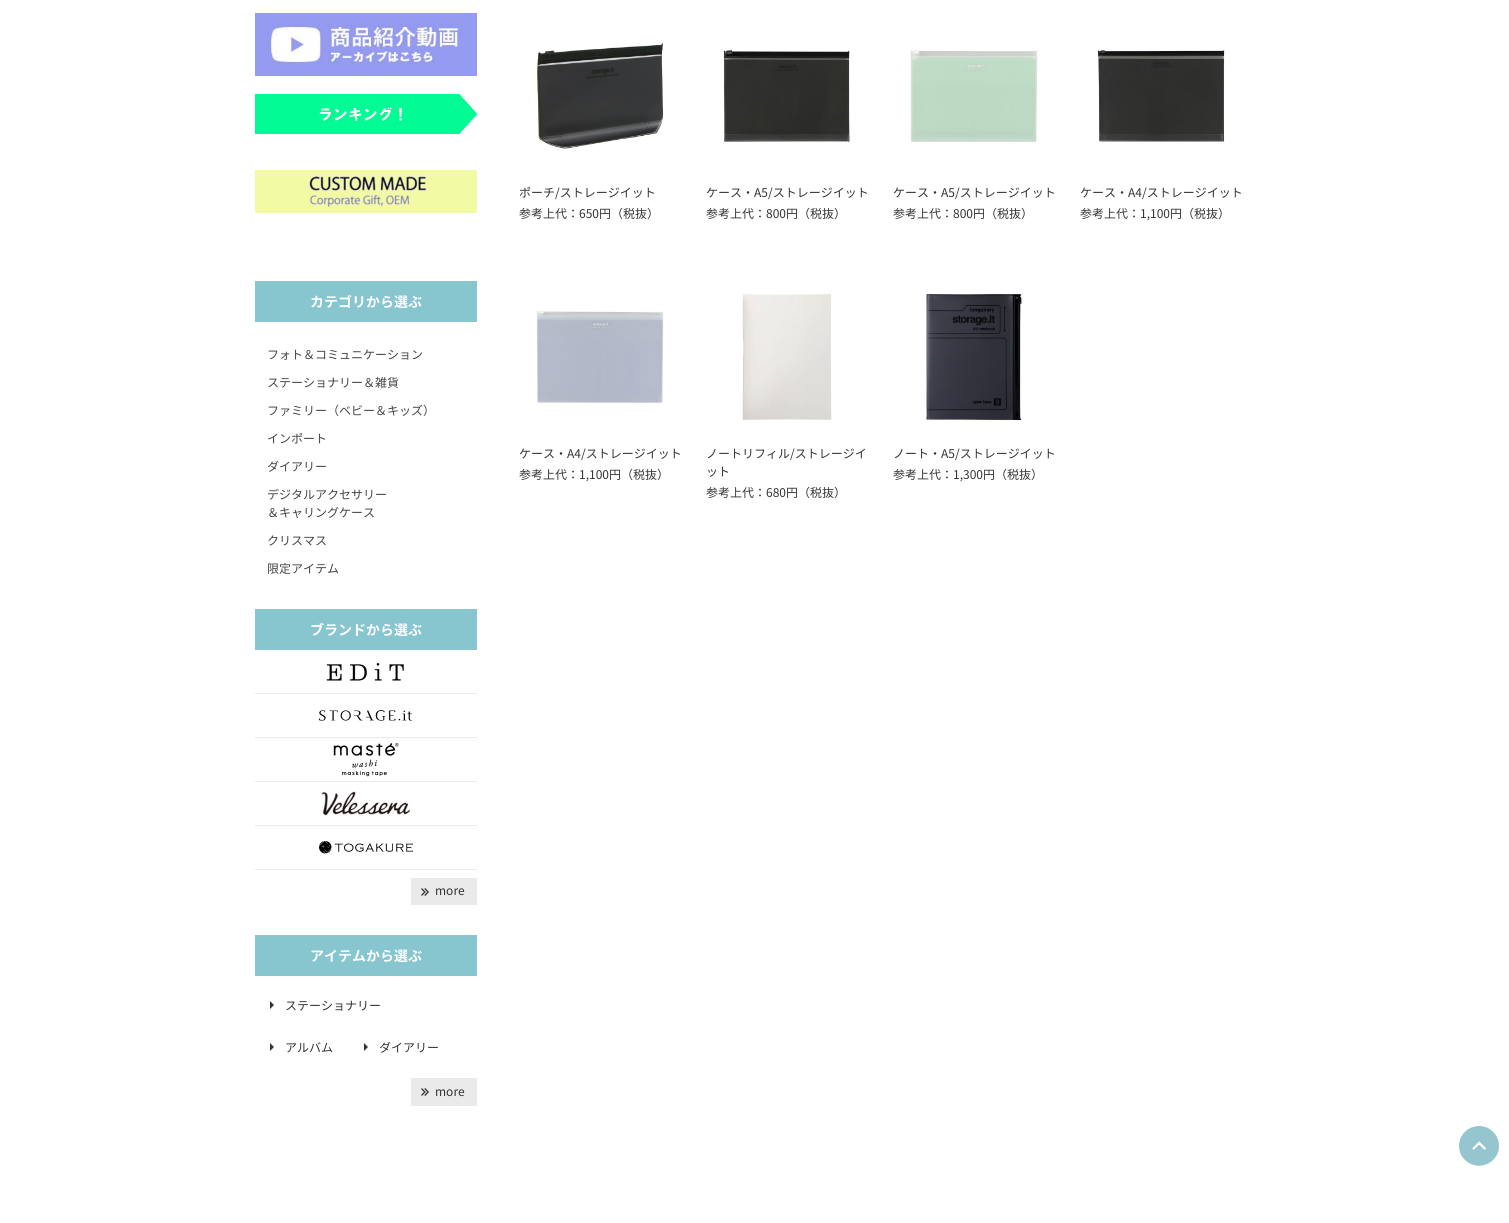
import math
import cairo


def use_color(cr, r, g, b):
  cr.set_source_rgb(r / 255, g / 255, b / 255)

def text(cr, x, y, s, family, size, color, bold=False, italic=False):
  cr.select_font_face(family, cairo.FONT_SLANT_ITALIC if italic else cairo.FONT_SLANT_NORMAL, cairo.FONT_WEIGHT_BOLD if bold else cairo.FONT_WEIGHT_NORMAL)
  cr.set_font_size(size)
  use_color(cr, *color)
  cr.move_to(x, y)
  cr.show_text(s)

def box(cr, x, y, w, h, *color):
  use_color(cr, *color)
  cr.rectangle(x, y, w, h)
  cr.fill()

def picture(cr, path, x, y, w, h):
  cr.save()
  cr.set_source_surface(cairo.ImageSurface.create_from_png(path), x, y)
  cr.rectangle(x, y, w, h)
  cr.fill()
  cr.restore()

def draw(cr):
  use_color(cr, 255, 255, 255)
  cr.paint()
  picture(cr, "img_01.png", 255, 13, 222, 63)
  picture(cr, "img_02.png", 255, 94, 222, 40)
  picture(cr, "img_03.png", 255, 170, 222, 43)
  box(cr, 255, 281, 222, 41, 135, 198, 207)
  box(cr, 255, 609, 222, 41, 135, 198, 207)
  box(cr, 255, 693, 222, 1, 234, 234, 234)
  picture(cr, "img_04.png", 326, 662, 78, 19)
  box(cr, 255, 737, 222, 1, 234, 234, 234)
  picture(cr, "img_05.png", 319, 710, 93, 11)
  box(cr, 255, 781, 222, 1, 234, 234, 234)
  picture(cr, "img_06.png", 333, 743, 66, 34)
  box(cr, 255, 825, 222, 1, 234, 234, 234)
  picture(cr, "img_07.png", 321, 791, 90, 25)
  box(cr, 255, 869, 222, 1, 234, 234, 234)
  picture(cr, "img_08.png", 319, 841, 94, 13)
  box(cr, 411, 878, 66, 27, 234, 234, 234)
  picture(cr, "img_09.png", 421, 888, 8, 8)
  box(cr, 255, 935, 222, 41, 135, 198, 207)
  picture(cr, "img_10.png", 270, 1001, 4, 8)
  picture(cr, "img_10.png", 270, 1043, 4, 8)
  picture(cr, "img_10.png", 364, 1043, 4, 8)
  box(cr, 411, 1078, 66, 28, 234, 234, 234)
  picture(cr, "img_09.png", 421, 1088, 8, 8)
  picture(cr, "img_11.png", 536, 43, 128, 106)
  picture(cr, "img_12.png", 723, 50, 127, 93)
  picture(cr, "img_13.png", 910, 50, 128, 92)
  picture(cr, "img_14.png", 1097, 50, 128, 92)
  picture(cr, "img_15.png", 536, 310, 128, 93)
  picture(cr, "img_16.png", 742, 294, 90, 126)
  picture(cr, "img_17.png", 926, 293, 96, 128)
  picture(cr, "img_18.png", 1459, 1126, 40, 40)
  text(cr, 310, 307, "カテゴリから選ぶ", "Noto Sans JP", 14, (255, 255, 255), bold=True)
  text(cr, 267, 359, "フォト＆コミュニケーション", "Noto Sans JP", 12, (68, 68, 68))
  text(cr, 267, 387, "ステーショナリー＆雑貨", "Noto Sans JP", 12, (68, 68, 68))
  text(cr, 267, 415, "ファミリー（ベビー＆キッズ）", "Noto Sans JP", 12, (68, 68, 68))
  text(cr, 267, 443, "インポート", "Noto Sans JP", 12, (68, 68, 68))
  text(cr, 267, 471, "ダイアリー", "Noto Sans JP", 12, (68, 68, 68))
  text(cr, 267, 499, "デジタルアクセサリー", "Noto Sans JP", 12, (68, 68, 68))
  text(cr, 267, 517, "＆キャリングケース", "Noto Sans JP", 12, (68, 68, 68))
  text(cr, 267, 545, "クリスマス", "Noto Sans JP", 12, (68, 68, 68))
  text(cr, 267, 573, "限定アイテム", "Noto Sans JP", 12, (68, 68, 68))
  text(cr, 310, 635, "ブランドから選ぶ", "Noto Sans JP", 14, (255, 255, 255), bold=True)
  text(cr, 435, 895, "more", "Noto Sans JP", 12, (51, 51, 51))
  text(cr, 310, 961, "アイテムから選ぶ", "Noto Sans JP", 14, (255, 255, 255), bold=True)
  text(cr, 285, 1010, "ステーショナリー", "Noto Sans JP", 12, (51, 51, 51))
  text(cr, 285, 1052, "アルバム", "Noto Sans JP", 12, (51, 51, 51))
  text(cr, 379, 1052, "ダイアリー", "Noto Sans JP", 12, (51, 51, 51))
  text(cr, 435, 1096, "more", "Noto Sans JP", 12, (51, 51, 51))
  text(cr, 519, 197, "ポーチ/ストレージイット", "Noto Sans JP", 12, (51, 51, 51))
  text(cr, 519, 218, "参考上代：650円（税抜）", "Noto Sans JP", 12, (51, 51, 51))
  text(cr, 706, 197, "ケース・A5/ストレージイット", "Noto Sans JP", 12, (51, 51, 51))
  text(cr, 706, 218, "参考上代：800円（税抜）", "Noto Sans JP", 12, (51, 51, 51))
  text(cr, 893, 197, "ケース・A5/ストレージイット", "Noto Sans JP", 12, (51, 51, 51))
  text(cr, 893, 218, "参考上代：800円（税抜）", "Noto Sans JP", 12, (51, 51, 51))
  text(cr, 1080, 197, "ケース・A4/ストレージイット", "Noto Sans JP", 12, (51, 51, 51))
  text(cr, 1080, 218, "参考上代：1,100円（税抜）", "Noto Sans JP", 12, (51, 51, 51))
  text(cr, 519, 458, "ケース・A4/ストレージイット", "Noto Sans JP", 12, (51, 51, 51))
  text(cr, 519, 479, "参考上代：1,100円（税抜）", "Noto Sans JP", 12, (51, 51, 51))
  text(cr, 706, 458, "ノートリフィル/ストレージイ", "Noto Sans JP", 12, (51, 51, 51))
  text(cr, 706, 476, "ット", "Noto Sans JP", 12, (51, 51, 51))
  text(cr, 706, 497, "参考上代：680円（税抜）", "Noto Sans JP", 12, (51, 51, 51))
  text(cr, 893, 458, "ノート・A5/ストレージイット", "Noto Sans JP", 12, (51, 51, 51))
  text(cr, 893, 479, "参考上代：1,300円（税抜）", "Noto Sans JP", 12, (51, 51, 51))


surface = cairo.ImageSurface(cairo.FORMAT_RGB24, 1509, 1223)
cr = cairo.Context(surface)
options = cairo.FontOptions()
options.set_hint_metrics(cairo.HINT_METRICS_OFF)
options.set_hint_style(cairo.HINT_STYLE_NONE)
cr.set_font_options(options)
cr.set_miter_limit(4)
draw(cr)
surface.write_to_png("out.png")
